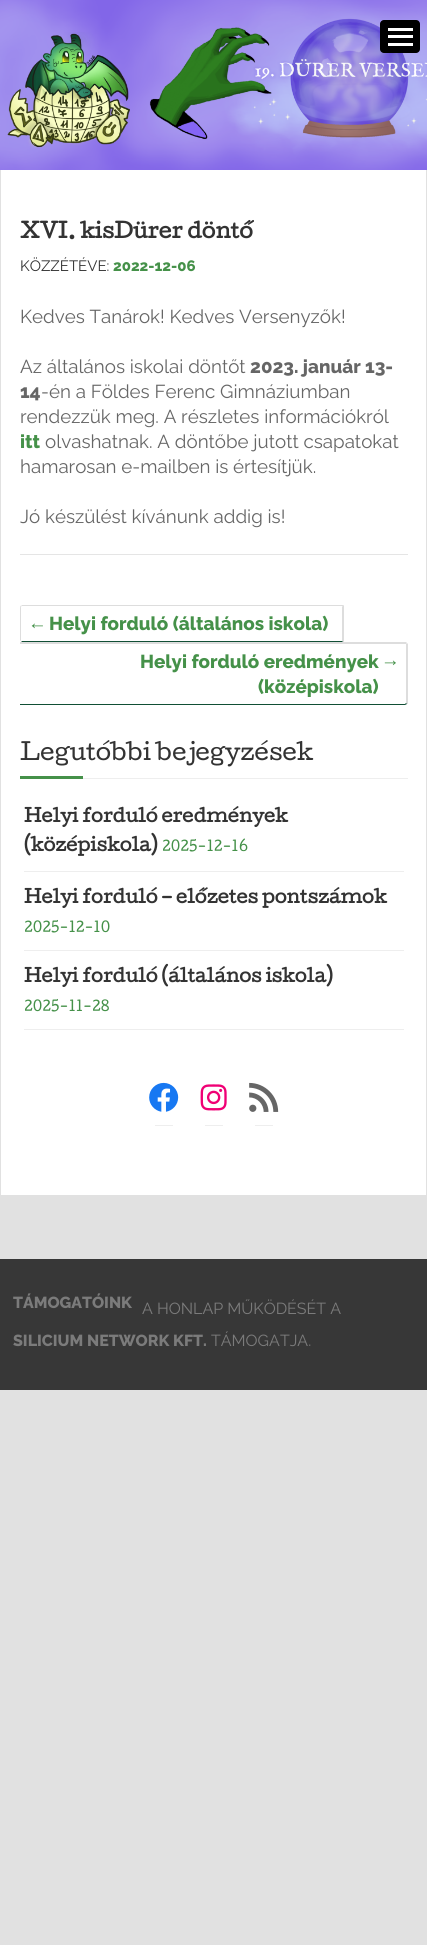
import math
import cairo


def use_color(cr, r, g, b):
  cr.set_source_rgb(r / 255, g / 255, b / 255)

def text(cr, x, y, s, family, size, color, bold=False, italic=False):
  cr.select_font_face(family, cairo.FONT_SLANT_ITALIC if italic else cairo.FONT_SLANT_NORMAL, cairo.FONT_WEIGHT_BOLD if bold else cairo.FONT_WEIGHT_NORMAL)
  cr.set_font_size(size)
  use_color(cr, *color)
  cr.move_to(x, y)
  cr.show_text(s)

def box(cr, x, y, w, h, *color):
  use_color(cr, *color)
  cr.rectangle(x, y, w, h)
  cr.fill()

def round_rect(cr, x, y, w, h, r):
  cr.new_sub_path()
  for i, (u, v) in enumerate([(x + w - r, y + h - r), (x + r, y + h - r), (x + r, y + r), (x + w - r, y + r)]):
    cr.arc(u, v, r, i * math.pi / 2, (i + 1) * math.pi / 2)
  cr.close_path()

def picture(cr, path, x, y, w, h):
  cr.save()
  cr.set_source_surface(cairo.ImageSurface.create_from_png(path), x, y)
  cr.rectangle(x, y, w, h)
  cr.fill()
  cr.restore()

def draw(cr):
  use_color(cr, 225, 225, 225)
  cr.paint()
  picture(cr, "img_01.png", 0, 0, 427, 170)
  picture(cr, "img_02.png", 7, 32, 123, 116)
  use_color(cr, 0, 0, 0)
  round_rect(cr, 380, 20, 40, 33, 4)
  cr.fill()
  box(cr, 388, 28, 25, 3, 255, 255, 255)
  box(cr, 388, 35, 25, 3, 255, 255, 255)
  box(cr, 388, 43, 25, 3, 255, 255, 255)
  box(cr, 1, 170, 425, 1025, 255, 255, 255)
  box(cr, 20, 554, 388, 1, 229, 229, 229)
  use_color(cr, 221, 221, 221)
  cr.new_path()
  cr.move_to(22, 605)
  cr.line_to(21, 606)
  cr.line_to(22, 606)
  cr.line_to(342, 606)
  cr.line_to(342, 607)
  cr.line_to(344, 605)
  cr.close_path()
  cr.fill()
  cr.new_path()
  cr.move_to(344, 605)
  cr.line_to(344, 642)
  cr.line_to(343, 642)
  cr.line_to(342, 641)
  cr.line_to(342, 607)
  cr.close_path()
  cr.fill()
  use_color(cr, 17, 79, 53)
  cr.new_path()
  cr.move_to(343, 642)
  cr.line_to(22, 642)
  cr.line_to(21, 642)
  cr.line_to(22, 641)
  cr.line_to(342, 641)
  cr.close_path()
  cr.fill()
  use_color(cr, 221, 221, 221)
  cr.new_path()
  cr.move_to(20, 608)
  cr.line_to(20, 640)
  cr.line_to(21, 641.5)
  cr.line_to(21.5, 641)
  cr.line_to(21, 641)
  cr.line_to(21, 607)
  cr.line_to(21.5, 606.5)
  cr.line_to(20.5, 605.5)
  cr.curve_to(20.5, 606, 20, 607, 20, 608)
  cr.close_path()
  cr.fill()
  cr.new_path()
  cr.move_to(20, 644)
  cr.line_to(406, 644)
  cr.line_to(407, 643)
  cr.line_to(406, 642)
  cr.line_to(20, 642)
  cr.close_path()
  cr.fill()
  cr.new_path()
  cr.move_to(406, 703)
  cr.line_to(406, 644)
  cr.line_to(407, 643)
  cr.line_to(408, 644)
  cr.line_to(408, 704)
  cr.line_to(407, 704)
  cr.close_path()
  cr.fill()
  use_color(cr, 17, 79, 53)
  cr.new_path()
  cr.move_to(20, 704)
  cr.line_to(20, 705)
  cr.line_to(405, 705)
  cr.line_to(407, 704)
  cr.line_to(406, 703)
  cr.line_to(405, 704)
  cr.close_path()
  cr.fill()
  box(cr, 83, 778, 325, 1, 238, 238, 238)
  box(cr, 20, 776, 63, 3, 69, 145, 73)
  box(cr, 24, 871, 380, 1, 238, 238, 238)
  box(cr, 24, 950, 380, 1, 238, 238, 238)
  box(cr, 24, 1029, 380, 1, 238, 238, 238)
  box(cr, 155, 1125, 18, 1, 238, 238, 238)
  picture(cr, "img_03.png", 149, 1082, 30, 30)
  box(cr, 205, 1125, 18, 1, 238, 238, 238)
  picture(cr, "img_04.png", 200, 1084, 27, 27)
  box(cr, 255, 1125, 18, 1, 238, 238, 238)
  picture(cr, "img_05.png", 249, 1082, 30, 30)
  box(cr, 0, 1259, 427, 131, 55, 55, 55)
  text(cr, 20, 238, "XVI. kisDürer döntő", "Cutive", 20, (51, 51, 51), bold=True)
  text(cr, 20, 271, "KÖZZÉTÉVE:", "Raleway", 15, (51, 51, 51))
  text(cr, 113, 271, "2022-12-06", "Raleway ExtraBold", 15, (69, 145, 73))
  text(cr, 20, 323, "Kedves Tanárok! Kedves Versenyzők!", "Raleway", 18.75, (102, 102, 102))
  text(cr, 20, 373, "Az általános iskolai döntőt", "Raleway", 18.75, (102, 102, 102))
  text(cr, 250, 373, "2023. január 13-", "Raleway ExtraBold", 18.75, (102, 102, 102))
  text(cr, 20, 398, "14", "Raleway ExtraBold", 18.75, (102, 102, 102))
  text(cr, 41, 398, "-én a Földes Ferenc Gimnáziumban", "Raleway", 18.75, (102, 102, 102))
  text(cr, 20, 423, "rendezzük meg. A részletes információkról", "Raleway", 18.75, (102, 102, 102))
  text(cr, 20, 448, "itt", "Raleway ExtraBold", 18.75, (69, 145, 73))
  text(cr, 45, 448, "olvashatnak. A döntőbe jutott csapatokat", "Raleway", 18.75, (102, 102, 102))
  text(cr, 20, 473, "hamarosan e-mailben is értesítjük.", "Raleway", 18.75, (102, 102, 102))
  text(cr, 20, 523, "Jó készülést kívánunk addig is!", "Raleway", 18.75, (102, 102, 102))
  text(cr, 28, 629, "←", "Liberation Sans", 18.75, (69, 145, 73), bold=True)
  text(cr, 49, 630, "Helyi forduló (általános iskola)", "Raleway ExtraBold", 18.75, (69, 145, 73))
  text(cr, 140, 668, "Helyi forduló eredmények", "Raleway ExtraBold", 18.75, (69, 145, 73))
  text(cr, 381, 666, "→", "Liberation Sans", 18.75, (69, 145, 73), bold=True)
  text(cr, 258, 693, "(középiskola)", "Raleway ExtraBold", 18.75, (69, 145, 73))
  text(cr, 20, 760, "Legutóbbi bejegyzések", "Cutive", 22.5, (51, 51, 51))
  text(cr, 24, 822, "Helyi forduló eredmények", "Cutive", 17.4, (51, 51, 51), bold=True)
  text(cr, 24, 851, "(középiskola)", "Cutive", 17.4, (51, 51, 51), bold=True)
  text(cr, 162, 851, "2025-12-16", "Cutive", 13.75, (69, 145, 73))
  text(cr, 24, 903, "Helyi forduló – előzetes pontszámok", "Cutive", 17.4, (51, 51, 51), bold=True)
  text(cr, 24, 932, "2025-12-10", "Cutive", 13.75, (69, 145, 73))
  text(cr, 24, 982, "Helyi forduló (általános iskola)", "Cutive", 17.4, (51, 51, 51), bold=True)
  text(cr, 24, 1011, "2025-11-28", "Cutive", 13.75, (69, 145, 73))
  text(cr, 13, 1308, "TÁMOGATÓINK", "Raleway ExtraBold", 16, (123, 123, 123))
  text(cr, 142, 1314, "A HONLAP MŰKÖDÉSÉT A", "Raleway", 16, (123, 123, 123))
  text(cr, 13, 1346, "SILICIUM NETWORK KFT.", "Raleway ExtraBold", 16, (123, 123, 123))
  text(cr, 211, 1346, "TÁMOGATJA.", "Raleway", 16, (123, 123, 123))


surface = cairo.ImageSurface(cairo.FORMAT_RGB24, 427, 1945)
cr = cairo.Context(surface)
options = cairo.FontOptions()
options.set_hint_metrics(cairo.HINT_METRICS_OFF)
options.set_hint_style(cairo.HINT_STYLE_NONE)
cr.set_font_options(options)
cr.set_miter_limit(4)
draw(cr)
surface.write_to_png("out.png")
